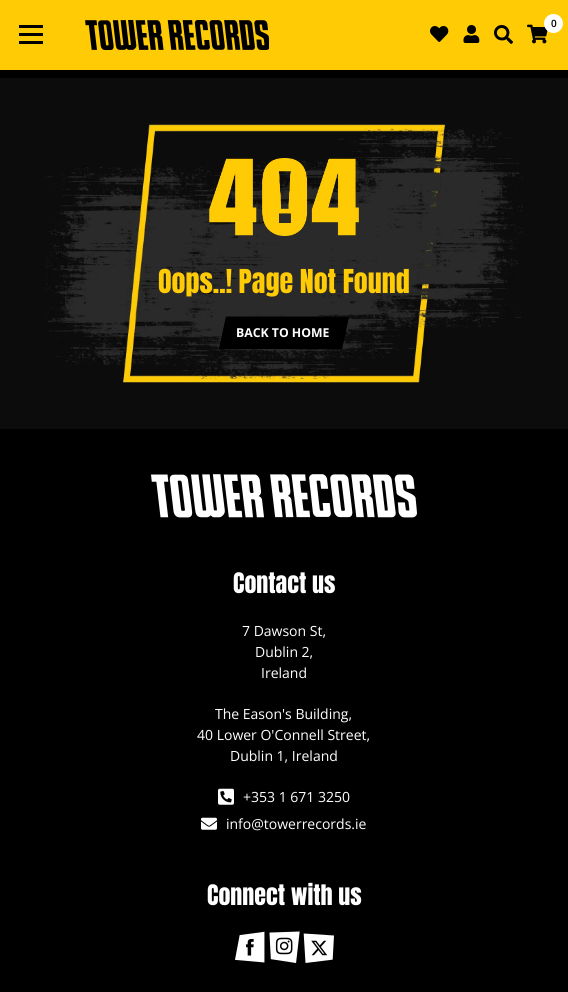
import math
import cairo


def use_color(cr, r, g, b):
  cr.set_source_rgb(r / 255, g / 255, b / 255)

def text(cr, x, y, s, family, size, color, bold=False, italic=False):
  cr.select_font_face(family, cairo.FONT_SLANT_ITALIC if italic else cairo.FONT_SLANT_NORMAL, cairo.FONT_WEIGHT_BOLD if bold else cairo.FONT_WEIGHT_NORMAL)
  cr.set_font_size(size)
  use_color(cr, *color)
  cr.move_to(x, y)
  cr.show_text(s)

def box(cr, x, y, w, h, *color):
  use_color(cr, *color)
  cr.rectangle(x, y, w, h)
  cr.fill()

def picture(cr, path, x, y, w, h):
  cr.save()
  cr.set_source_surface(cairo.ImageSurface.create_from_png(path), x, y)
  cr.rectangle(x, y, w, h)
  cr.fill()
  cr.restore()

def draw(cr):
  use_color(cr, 255, 255, 255)
  cr.paint()
  box(cr, 0, 0, 568, 70, 255, 203, 4)
  box(cr, 0, 70, 568, 8, 0, 0, 0)
  box(cr, 19, 25, 24, 3, 0, 0, 0)
  box(cr, 19, 33, 24, 3, 0, 0, 0)
  box(cr, 19, 41, 24, 3, 0, 0, 0)
  picture(cr, "img_01.png", 85, 20, 184, 30)
  picture(cr, "img_02.png", 527, 24, 21, 20)
  use_color(cr, 255, 255, 255)
  cr.arc(553.5, 23.5, 9.5, 0, 2 * math.pi)
  cr.fill()
  picture(cr, "img_03.png", 430, 26, 19, 16)
  picture(cr, "img_04.png", 463, 25, 17, 18)
  picture(cr, "img_05.png", 494, 25, 19, 19)
  picture(cr, "img_06.png", 0, 78, 568, 351)
  picture(cr, "img_07.png", 209, 158, 150, 78)
  use_color(cr, 0, 0, 0)
  cr.new_path()
  cr.move_to(226, 317)
  cr.line_to(349, 317)
  cr.line_to(342, 349)
  cr.line_to(219, 349)
  cr.close_path()
  cr.fill()
  cr.new_path()
  cr.move_to(226.5, 317)
  cr.line_to(348, 317)
  cr.line_to(341.5, 348)
  cr.line_to(220, 348)
  cr.close_path()
  cr.set_line_width(1)
  cr.stroke()
  box(cr, 0, 429, 568, 563, 0, 0, 0)
  picture(cr, "img_08.png", 151, 474, 266, 44)
  picture(cr, "img_09.png", 218, 788, 16, 17)
  picture(cr, "img_10.png", 201, 817, 16, 13)
  picture(cr, "img_11.png", 235, 931, 30, 32)
  picture(cr, "img_12.png", 269, 931, 31, 32)
  picture(cr, "img_13.png", 303, 933, 31, 30)
  text(cr, 551, 27, "0", "Open Sans SemiBold", 10, (0, 0, 0))
  text(cr, 158, 293, "Oops..! Page Not Found", "Anton", 28, (255, 203, 4))
  text(cr, 236, 337, "BACK TO HOME", "Open Sans", 12.25, (255, 255, 255), bold=True)
  text(cr, 233, 593, "Contact us", "Anton", 24, (255, 255, 255))
  text(cr, 242, 636, "7 Dawson St,", "Open Sans", 14, (255, 255, 255))
  text(cr, 255, 657, "Dublin 2,", "Open Sans", 14, (255, 255, 255))
  text(cr, 261, 678, "Ireland", "Open Sans", 14, (255, 255, 255))
  text(cr, 215, 719, "The Eason's Building,", "Open Sans", 14, (255, 255, 255))
  text(cr, 197, 740, "40 Lower O'Connell Street,", "Open Sans", 14, (255, 255, 255))
  text(cr, 230, 761, "Dublin 1, Ireland", "Open Sans", 14, (255, 255, 255))
  text(cr, 243, 802, "+353 1 671 3250", "Open Sans", 14, (255, 255, 255))
  text(cr, 226, 829, "info@towerrecords.ie", "Open Sans", 14, (255, 255, 255))
  text(cr, 207, 905, "Connect with us", "Anton", 24, (255, 255, 255))


surface = cairo.ImageSurface(cairo.FORMAT_RGB24, 568, 992)
cr = cairo.Context(surface)
options = cairo.FontOptions()
options.set_hint_metrics(cairo.HINT_METRICS_OFF)
options.set_hint_style(cairo.HINT_STYLE_NONE)
cr.set_font_options(options)
cr.set_miter_limit(4)
draw(cr)
surface.write_to_png("out.png")
